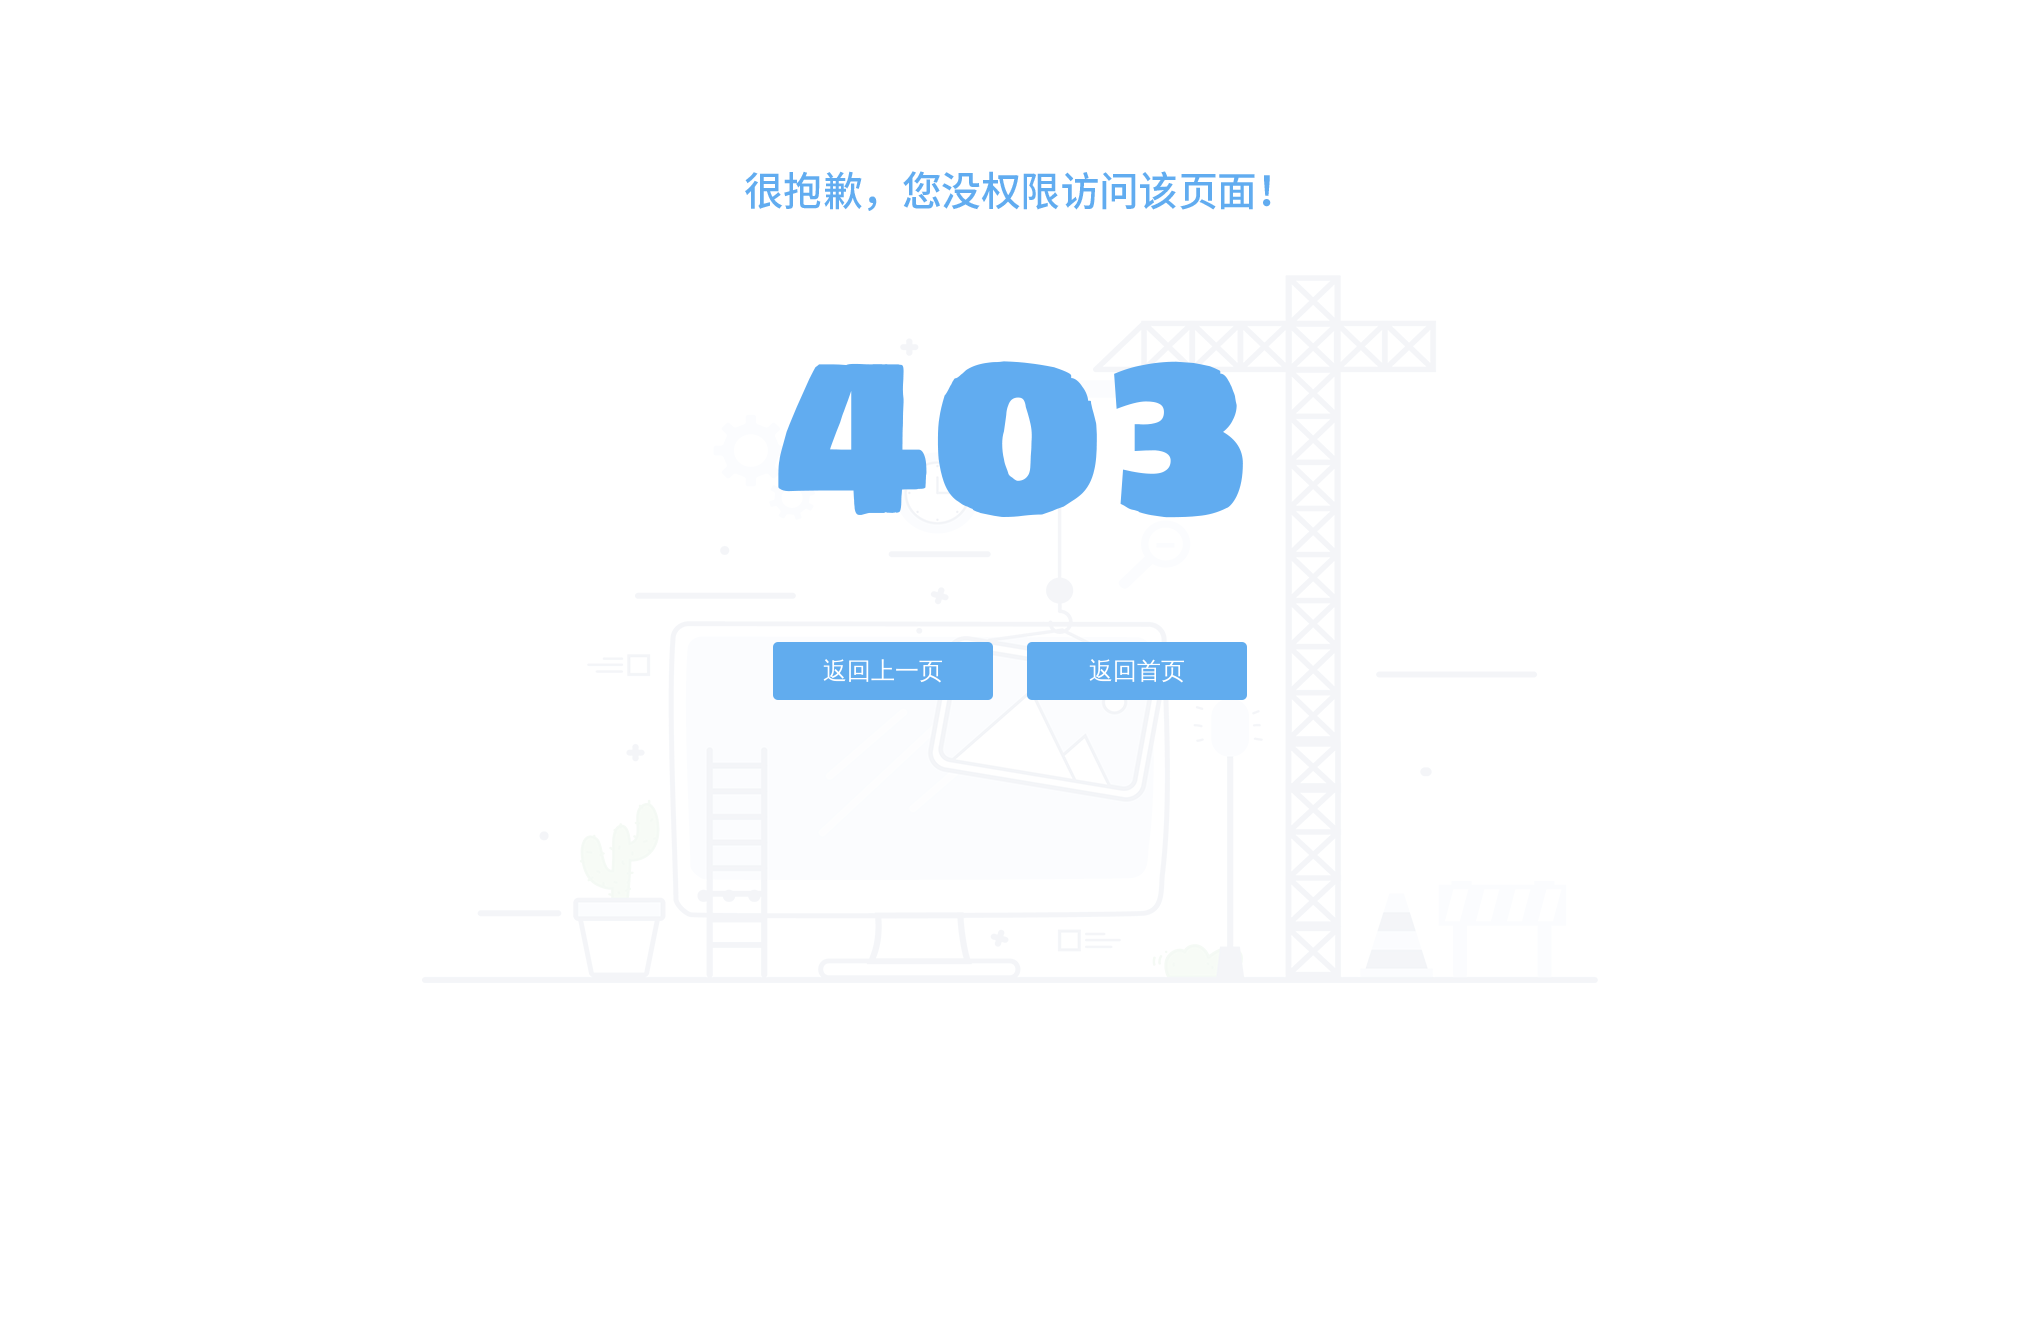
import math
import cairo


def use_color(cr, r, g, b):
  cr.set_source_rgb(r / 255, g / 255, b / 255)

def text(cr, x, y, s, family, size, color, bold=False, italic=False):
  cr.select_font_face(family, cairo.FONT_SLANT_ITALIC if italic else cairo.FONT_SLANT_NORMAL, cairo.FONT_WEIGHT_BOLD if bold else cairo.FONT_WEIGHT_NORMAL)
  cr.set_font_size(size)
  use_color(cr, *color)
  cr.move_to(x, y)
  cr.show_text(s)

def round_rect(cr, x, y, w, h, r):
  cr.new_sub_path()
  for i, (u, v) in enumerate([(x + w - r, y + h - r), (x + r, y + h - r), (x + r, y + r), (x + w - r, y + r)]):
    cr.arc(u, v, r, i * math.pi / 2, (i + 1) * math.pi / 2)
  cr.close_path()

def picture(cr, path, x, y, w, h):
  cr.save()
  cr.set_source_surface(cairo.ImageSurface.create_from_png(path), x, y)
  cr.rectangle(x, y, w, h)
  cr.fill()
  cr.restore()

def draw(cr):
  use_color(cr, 255, 255, 255)
  cr.paint()
  picture(cr, "img_01.png", 422, 275, 1176, 708)
  picture(cr, "img_02.png", 745, 171, 526, 347)
  use_color(cr, 97, 172, 238)
  round_rect(cr, 773, 642, 220, 58, 5)
  cr.fill()
  round_rect(cr, 1027, 642, 220, 58, 5)
  cr.fill()
  text(cr, 823, 679, "返回上一页", "WenQuanYi Zen Hei Medium", 24, (255, 255, 255))
  text(cr, 1089, 679, "返回首页", "WenQuanYi Zen Hei Medium", 24, (255, 255, 255))


surface = cairo.ImageSurface(cairo.FORMAT_RGB24, 2019, 1324)
cr = cairo.Context(surface)
options = cairo.FontOptions()
options.set_hint_metrics(cairo.HINT_METRICS_OFF)
options.set_hint_style(cairo.HINT_STYLE_NONE)
cr.set_font_options(options)
cr.set_miter_limit(4)
draw(cr)
surface.write_to_png("out.png")
